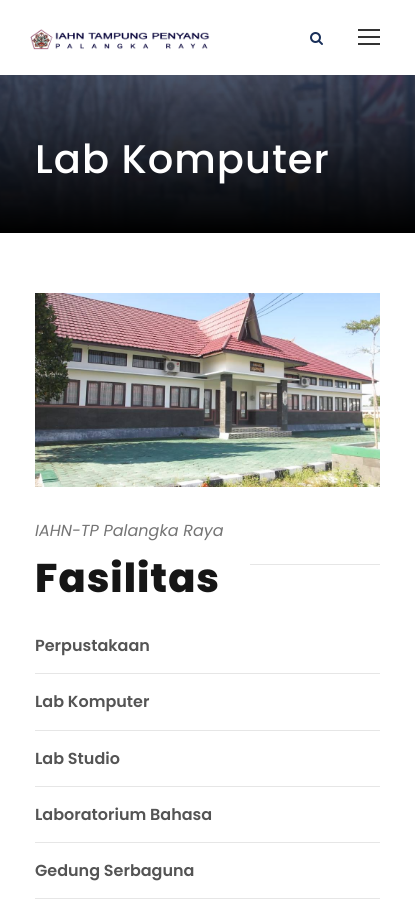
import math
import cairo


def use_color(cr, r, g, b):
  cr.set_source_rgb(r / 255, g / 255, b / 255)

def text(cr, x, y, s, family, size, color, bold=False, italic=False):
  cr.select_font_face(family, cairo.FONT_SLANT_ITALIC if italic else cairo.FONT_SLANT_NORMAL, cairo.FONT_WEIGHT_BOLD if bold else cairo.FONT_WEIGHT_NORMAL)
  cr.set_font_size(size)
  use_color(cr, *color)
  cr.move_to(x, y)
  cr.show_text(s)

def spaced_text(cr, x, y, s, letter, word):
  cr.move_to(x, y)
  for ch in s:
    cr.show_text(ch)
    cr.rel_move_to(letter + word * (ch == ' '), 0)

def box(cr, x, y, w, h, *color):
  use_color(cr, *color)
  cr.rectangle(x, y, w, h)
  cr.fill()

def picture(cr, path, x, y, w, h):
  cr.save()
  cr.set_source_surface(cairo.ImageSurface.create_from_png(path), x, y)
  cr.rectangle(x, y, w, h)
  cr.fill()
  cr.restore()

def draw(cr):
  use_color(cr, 255, 255, 255)
  cr.paint()
  picture(cr, "img_01.png", 30, 29, 180, 21)
  picture(cr, "img_02.png", 310, 32, 13, 13)
  box(cr, 358, 29, 22, 2, 51, 51, 51)
  box(cr, 358, 36, 22, 2, 51, 51, 51)
  box(cr, 358, 43, 22, 2, 51, 51, 51)
  picture(cr, "img_03.png", 0, 75, 415, 158)
  picture(cr, "img_04.png", 35, 293, 345, 194)
  box(cr, 250, 564, 130, 1, 230, 230, 230)
  box(cr, 35, 673, 345, 1, 230, 230, 230)
  box(cr, 35, 730, 345, 1, 230, 230, 230)
  box(cr, 35, 786, 345, 1, 230, 230, 230)
  box(cr, 35, 842, 345, 1, 230, 230, 230)
  box(cr, 35, 898, 345, 1, 230, 230, 230)
  cr.select_font_face("Poppins Medium")
  cr.set_font_size(40)
  use_color(cr, 255, 255, 255)
  spaced_text(cr, 35, 173, "Lab Komputer", 1, 0)
  text(cr, 35, 536, "IAHN-TP Palangka Raya", "Poppins", 16, (116, 116, 116), italic=True)
  cr.select_font_face("Poppins ExtraBold")
  cr.set_font_size(40)
  use_color(cr, 22, 22, 22)
  spaced_text(cr, 35, 592, "Fasilitas", 1, 0)
  text(cr, 35, 651, "Perpustakaan", "Poppins SemiBold", 16, (84, 84, 84))
  text(cr, 35, 707, "Lab Komputer", "Poppins SemiBold", 16, (84, 84, 84))
  text(cr, 35, 764, "Lab Studio", "Poppins SemiBold", 16, (84, 84, 84))
  text(cr, 35, 820, "Laboratorium Bahasa", "Poppins SemiBold", 16, (84, 84, 84))
  text(cr, 35, 876, "Gedung Serbaguna", "Poppins SemiBold", 16, (84, 84, 84))


surface = cairo.ImageSurface(cairo.FORMAT_RGB24, 415, 912)
cr = cairo.Context(surface)
options = cairo.FontOptions()
options.set_hint_metrics(cairo.HINT_METRICS_OFF)
options.set_hint_style(cairo.HINT_STYLE_NONE)
cr.set_font_options(options)
cr.set_miter_limit(4)
draw(cr)
surface.write_to_png("out.png")
